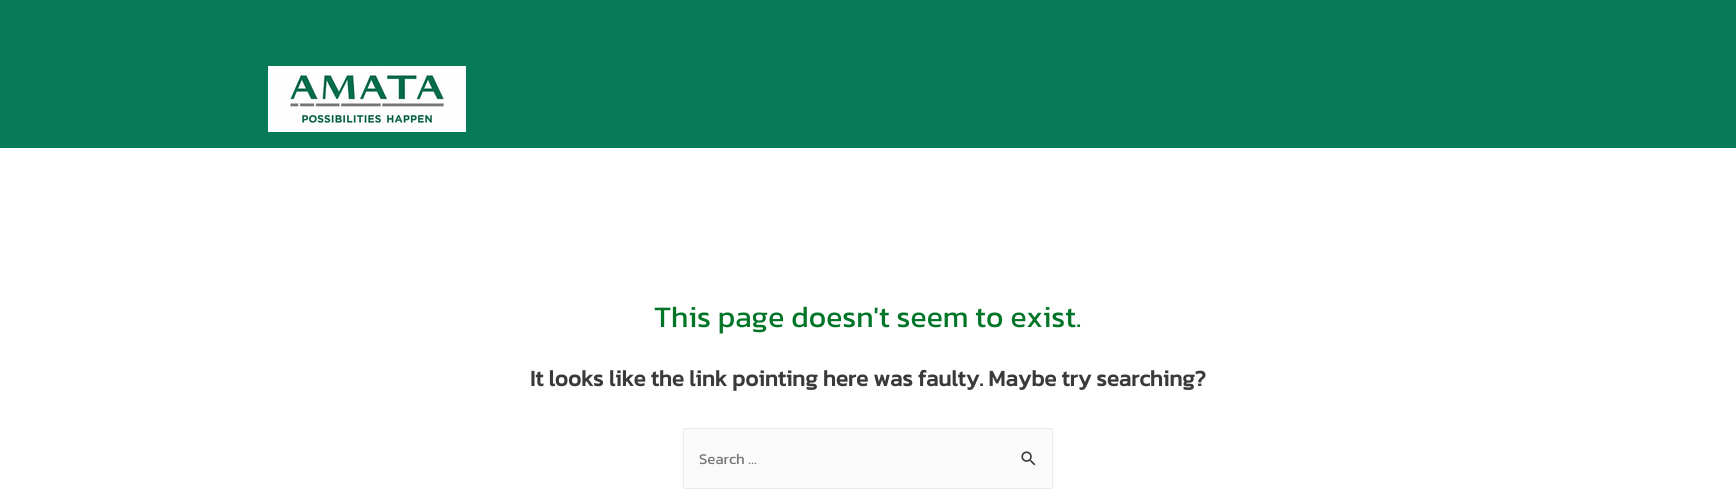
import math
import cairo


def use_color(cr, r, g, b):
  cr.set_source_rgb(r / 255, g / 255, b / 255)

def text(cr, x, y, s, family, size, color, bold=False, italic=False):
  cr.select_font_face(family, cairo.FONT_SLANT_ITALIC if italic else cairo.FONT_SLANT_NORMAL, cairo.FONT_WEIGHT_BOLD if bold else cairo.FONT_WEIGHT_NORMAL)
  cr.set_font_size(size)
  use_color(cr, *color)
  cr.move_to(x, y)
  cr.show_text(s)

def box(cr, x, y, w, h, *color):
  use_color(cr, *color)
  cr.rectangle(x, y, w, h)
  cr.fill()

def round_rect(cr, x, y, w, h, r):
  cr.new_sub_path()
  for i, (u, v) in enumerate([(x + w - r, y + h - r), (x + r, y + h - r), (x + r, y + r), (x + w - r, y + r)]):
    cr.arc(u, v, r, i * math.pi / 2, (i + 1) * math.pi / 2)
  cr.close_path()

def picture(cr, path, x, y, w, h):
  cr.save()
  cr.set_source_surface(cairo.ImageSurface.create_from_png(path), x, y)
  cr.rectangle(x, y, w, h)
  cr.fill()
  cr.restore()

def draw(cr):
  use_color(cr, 255, 255, 255)
  cr.paint()
  box(cr, 0, 0, 1736, 148, 7, 122, 87)
  picture(cr, "img_01.png", 268, 66, 198, 66)
  use_color(cr, 250, 250, 250)
  round_rect(cr, 683.5, 428.5, 369, 60, 1.5)
  cr.fill_preserve()
  use_color(cr, 234, 234, 234)
  cr.set_line_width(1)
  cr.stroke()
  picture(cr, "img_02.png", 1021, 451, 15, 15)
  text(cr, 654, 327, "This page doesn't seem to exist.", "Kanit", 30, (0, 117, 39))
  text(cr, 530, 386, "It looks like the link pointing here was faulty. Maybe try searching?", "Kanit", 22.5, (58, 58, 58), bold=True)
  text(cr, 699, 464, "Search …", "Kanit", 15, (117, 117, 117))


surface = cairo.ImageSurface(cairo.FORMAT_RGB24, 1736, 498)
cr = cairo.Context(surface)
options = cairo.FontOptions()
options.set_hint_metrics(cairo.HINT_METRICS_OFF)
options.set_hint_style(cairo.HINT_STYLE_NONE)
cr.set_font_options(options)
cr.set_miter_limit(4)
draw(cr)
surface.write_to_png("out.png")
